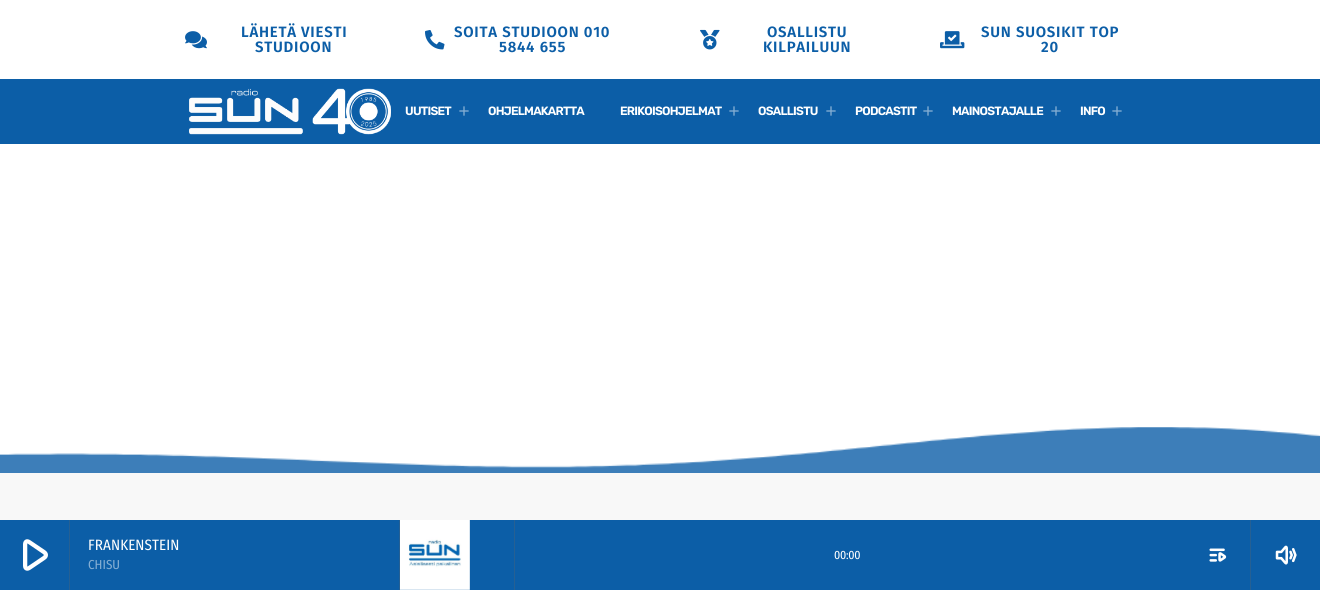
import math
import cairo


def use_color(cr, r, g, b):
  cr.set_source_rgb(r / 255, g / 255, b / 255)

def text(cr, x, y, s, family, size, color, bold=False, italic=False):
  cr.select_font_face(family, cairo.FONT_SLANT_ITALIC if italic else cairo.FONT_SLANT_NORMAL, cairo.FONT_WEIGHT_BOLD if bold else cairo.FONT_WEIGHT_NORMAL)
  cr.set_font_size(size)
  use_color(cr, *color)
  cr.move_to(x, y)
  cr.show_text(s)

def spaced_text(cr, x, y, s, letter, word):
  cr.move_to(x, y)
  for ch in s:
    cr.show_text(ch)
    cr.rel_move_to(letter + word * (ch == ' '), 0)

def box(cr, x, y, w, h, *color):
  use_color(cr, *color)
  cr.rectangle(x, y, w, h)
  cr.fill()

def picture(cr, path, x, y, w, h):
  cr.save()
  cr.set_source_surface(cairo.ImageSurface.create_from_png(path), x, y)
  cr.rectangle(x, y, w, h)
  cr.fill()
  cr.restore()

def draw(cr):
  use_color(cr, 255, 255, 255)
  cr.paint()
  picture(cr, "img_01.png", 185, 31, 22, 18)
  picture(cr, "img_02.png", 425, 30, 20, 20)
  picture(cr, "img_03.png", 700, 29, 20, 21)
  picture(cr, "img_04.png", 940, 31, 25, 18)
  box(cr, 0, 79, 1320, 65, 12, 94, 167)
  picture(cr, "img_05.png", 189, 88, 202, 47)
  picture(cr, "img_06.png", 459, 106, 10, 10)
  picture(cr, "img_06.png", 729, 106, 10, 10)
  picture(cr, "img_06.png", 826, 106, 10, 10)
  picture(cr, "img_06.png", 923, 106, 10, 10)
  picture(cr, "img_06.png", 1051, 106, 10, 10)
  picture(cr, "img_06.png", 1112, 106, 10, 10)
  picture(cr, "img_07.png", 0, 427, 1320, 46)
  box(cr, 0, 473, 1320, 47, 248, 248, 248)
  box(cr, 0, 520, 1320, 70, 12, 94, 167)
  box(cr, 399, 520, 1, 70, 38, 96, 147)
  box(cr, 69, 520, 1, 70, 38, 96, 147)
  picture(cr, "img_08.png", 23, 539, 25, 32)
  picture(cr, "img_09.png", 400, 520, 70, 70)
  box(cr, 514, 520, 1, 70, 38, 96, 147)
  picture(cr, "img_10.png", 1209, 548, 18, 14)
  box(cr, 1250, 520, 1, 70, 38, 96, 147)
  picture(cr, "img_11.png", 1275, 545, 22, 20)
  cr.select_font_face("Fira Sans SemiBold")
  cr.set_font_size(15)
  use_color(cr, 12, 94, 167)
  spaced_text(cr, 241, 37, "LÄHETÄ VIESTI", 0.75, 0)
  spaced_text(cr, 255, 52, "STUDIOON", 0.75, 0)
  spaced_text(cr, 454, 37, "SOITA STUDIOON 010", 0.75, 0)
  spaced_text(cr, 499, 52, "5844 655", 0.75, 0)
  spaced_text(cr, 767, 37, "OSALLISTU", 0.75, 0)
  spaced_text(cr, 763, 52, "KILPAILUUN", 0.75, 0)
  spaced_text(cr, 981, 37, "SUN SUOSIKIT TOP", 0.75, 0)
  spaced_text(cr, 1041, 52, "20", 0.75, 0)
  cr.select_font_face("Rubik SemiBold")
  cr.set_font_size(12)
  use_color(cr, 255, 255, 255)
  spaced_text(cr, 405, 115, "UUTISET", -0.75, 0)
  spaced_text(cr, 488, 115, "OHJELMAKARTTA", -0.75, 0)
  spaced_text(cr, 620, 115, "ERIKOISOHJELMAT", -0.75, 0)
  spaced_text(cr, 758, 115, "OSALLISTU", -0.75, 0)
  spaced_text(cr, 855, 115, "PODCASTIT", -0.75, 0)
  spaced_text(cr, 952, 115, "MAINOSTAJALLE", -0.75, 0)
  spaced_text(cr, 1080, 115, "INFO", -0.75, 0)
  cr.select_font_face("Fira Sans Condensed")
  cr.set_font_size(15)
  spaced_text(cr, 88, 550, "FRANKENSTEIN", 0.1, 0)
  text(cr, 88, 569, "CHISU", "Fira Sans Condensed", 13, (134, 175, 211))
  cr.set_font_size(12)
  use_color(cr, 255, 255, 255)
  spaced_text(cr, 834, 559, "00:00", -0.25, 0)


surface = cairo.ImageSurface(cairo.FORMAT_RGB24, 1320, 590)
cr = cairo.Context(surface)
options = cairo.FontOptions()
options.set_hint_metrics(cairo.HINT_METRICS_OFF)
options.set_hint_style(cairo.HINT_STYLE_NONE)
cr.set_font_options(options)
cr.set_miter_limit(4)
draw(cr)
surface.write_to_png("out.png")
